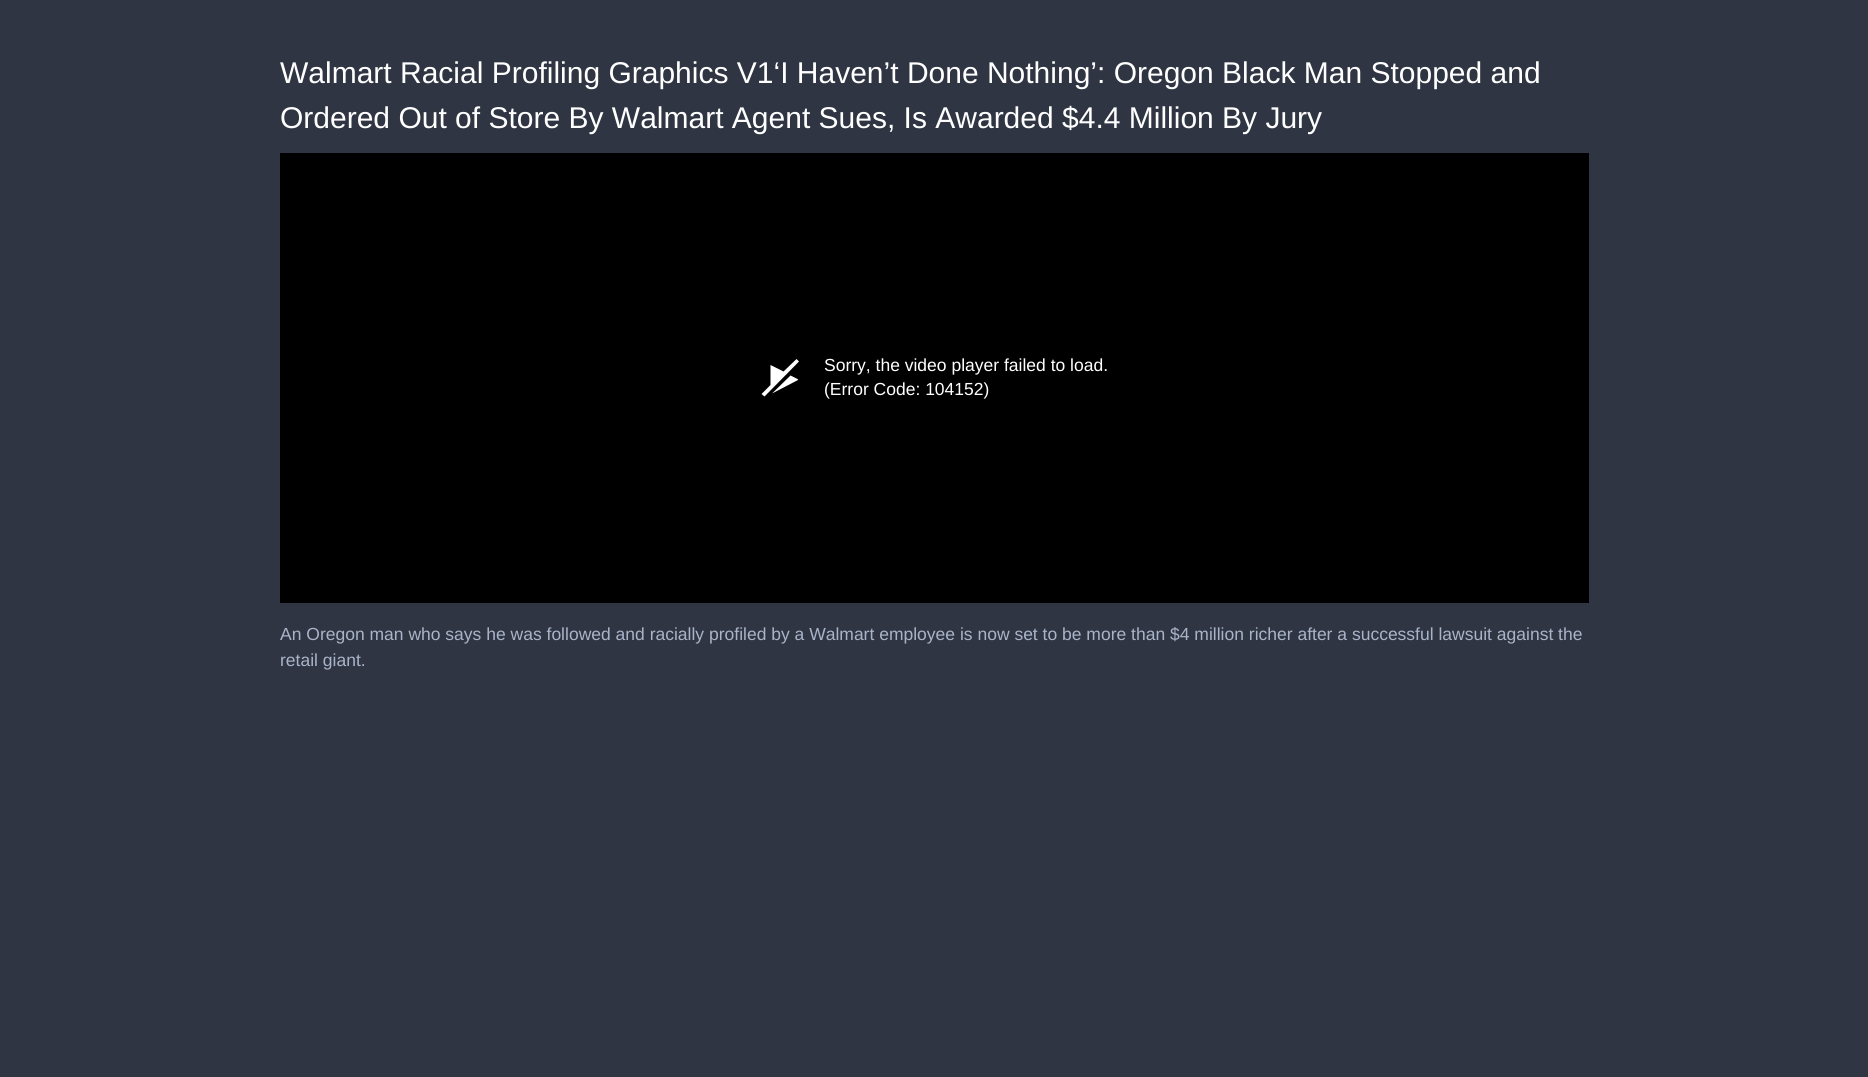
import math
import cairo


def use_color(cr, r, g, b):
  cr.set_source_rgb(r / 255, g / 255, b / 255)

def text(cr, x, y, s, family, size, color, bold=False, italic=False):
  cr.select_font_face(family, cairo.FONT_SLANT_ITALIC if italic else cairo.FONT_SLANT_NORMAL, cairo.FONT_WEIGHT_BOLD if bold else cairo.FONT_WEIGHT_NORMAL)
  cr.set_font_size(size)
  use_color(cr, *color)
  cr.move_to(x, y)
  cr.show_text(s)

def box(cr, x, y, w, h, *color):
  use_color(cr, *color)
  cr.rectangle(x, y, w, h)
  cr.fill()

def draw(cr):
  use_color(cr, 47, 53, 66)
  cr.paint()
  box(cr, 280, 153, 1309, 450, 0, 0, 0)
  use_color(cr, 255, 255, 255)
  cr.new_path()
  cr.move_to(798, 380)
  cr.line_to(772, 393.5)
  cr.line_to(790.5, 375.5)
  cr.curve_to(797.5, 379, 799, 379.5, 798, 380)
  cr.close_path()
  cr.move_to(796.5, 359)
  cr.line_to(783.5, 371.5)
  cr.line_to(770.5, 365)
  cr.line_to(770.5, 385)
  cr.line_to(761.5, 394)
  cr.line_to(764.5, 396.5)
  cr.line_to(799, 361.5)
  cr.close_path()
  cr.fill()
  text(cr, 280, 83, "Walmart Racial Profiling Graphics V1‘I Haven’t Done Nothing’: Oregon Black Man Stopped and", "Liberation Sans", 30, (255, 255, 255))
  text(cr, 280, 128, "Ordered Out of Store By Walmart Agent Sues, Is Awarded $4.4 Million By Jury", "Liberation Sans", 30, (255, 255, 255))
  text(cr, 824, 371, "Sorry, the video player failed to load.", "Liberation Sans", 17.5, (255, 255, 255))
  text(cr, 824, 395, "(Error Code: 104152)", "Liberation Sans", 17.5, (255, 255, 255))
  text(cr, 280, 640, "An Oregon man who says he was followed and racially profiled by a Walmart employee is now set to be more than $4 million richer after a successful lawsuit against the", "Liberation Sans", 17.5, (170, 180, 200))
  text(cr, 280, 666, "retail giant.", "Liberation Sans", 17.5, (170, 180, 200))


surface = cairo.ImageSurface(cairo.FORMAT_RGB24, 1868, 1077)
cr = cairo.Context(surface)
options = cairo.FontOptions()
options.set_hint_metrics(cairo.HINT_METRICS_OFF)
options.set_hint_style(cairo.HINT_STYLE_NONE)
cr.set_font_options(options)
cr.set_miter_limit(4)
draw(cr)
surface.write_to_png("out.png")
